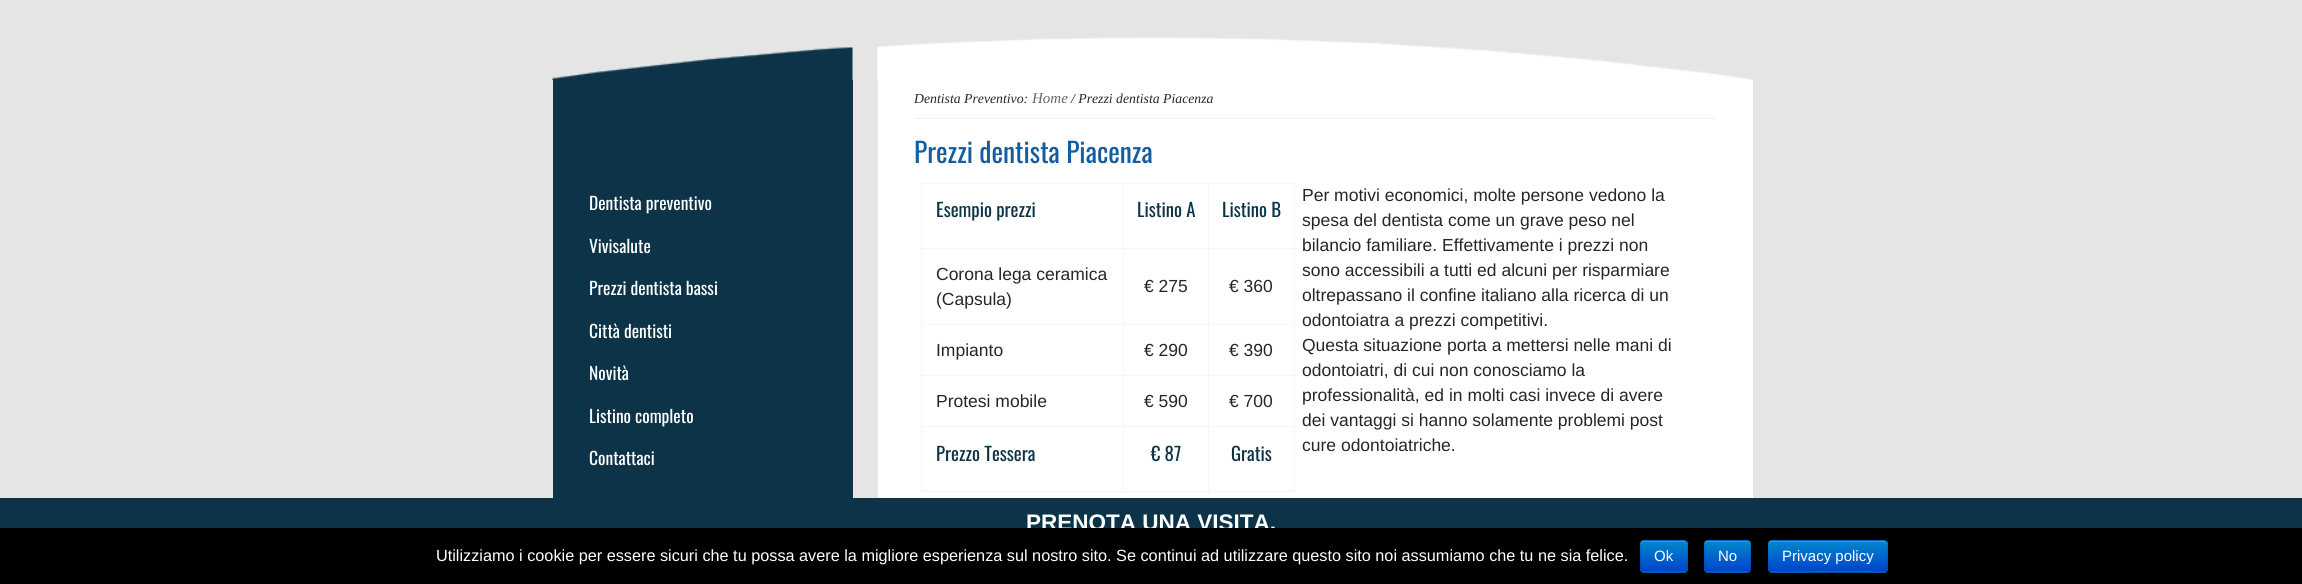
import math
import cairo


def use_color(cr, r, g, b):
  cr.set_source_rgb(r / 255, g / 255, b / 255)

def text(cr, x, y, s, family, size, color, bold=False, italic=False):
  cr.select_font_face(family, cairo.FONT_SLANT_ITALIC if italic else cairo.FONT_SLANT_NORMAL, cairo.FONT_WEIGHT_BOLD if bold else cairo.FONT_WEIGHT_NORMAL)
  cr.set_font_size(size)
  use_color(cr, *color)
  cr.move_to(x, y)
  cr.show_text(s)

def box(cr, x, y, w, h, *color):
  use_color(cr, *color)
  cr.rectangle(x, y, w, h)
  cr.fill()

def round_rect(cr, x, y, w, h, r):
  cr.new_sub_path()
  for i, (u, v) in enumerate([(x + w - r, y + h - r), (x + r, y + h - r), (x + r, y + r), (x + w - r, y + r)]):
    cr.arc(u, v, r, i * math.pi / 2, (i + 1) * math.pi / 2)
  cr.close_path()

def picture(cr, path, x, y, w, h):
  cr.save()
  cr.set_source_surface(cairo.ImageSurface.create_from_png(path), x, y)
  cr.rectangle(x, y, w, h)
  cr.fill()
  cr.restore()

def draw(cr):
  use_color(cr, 229, 229, 229)
  cr.paint()
  picture(cr, "img_01.png", 552, 47, 301, 33)
  box(cr, 553, 80, 300, 418, 12, 51, 72)
  picture(cr, "img_02.png", 877, 37, 876, 43)
  box(cr, 878, 80, 875, 418, 255, 255, 255)
  box(cr, 915, 118, 800, 1, 238, 238, 238)
  box(cr, 921, 183, 374, 1, 245, 245, 245)
  box(cr, 1294, 183, 1, 310, 245, 245, 245)
  box(cr, 921, 248, 373, 1, 245, 245, 245)
  box(cr, 921, 184, 1, 65, 245, 245, 245)
  box(cr, 1123, 184, 1, 65, 245, 245, 245)
  box(cr, 1208, 184, 1, 65, 245, 245, 245)
  box(cr, 921, 324, 373, 1, 245, 245, 245)
  box(cr, 921, 249, 1, 76, 245, 245, 245)
  box(cr, 1123, 249, 1, 76, 245, 245, 245)
  box(cr, 1208, 249, 1, 76, 245, 245, 245)
  box(cr, 921, 375, 373, 1, 245, 245, 245)
  box(cr, 921, 325, 1, 51, 245, 245, 245)
  box(cr, 1123, 325, 1, 51, 245, 245, 245)
  box(cr, 1208, 325, 1, 51, 245, 245, 245)
  box(cr, 921, 426, 373, 1, 245, 245, 245)
  box(cr, 921, 376, 1, 52, 245, 245, 245)
  box(cr, 1123, 376, 1, 52, 245, 245, 245)
  box(cr, 1208, 376, 1, 52, 245, 245, 245)
  box(cr, 921, 491, 373, 1, 245, 245, 245)
  box(cr, 921, 428, 1, 65, 245, 245, 245)
  box(cr, 1123, 428, 1, 65, 245, 245, 245)
  box(cr, 1208, 428, 1, 65, 245, 245, 245)
  box(cr, 0, 498, 2302, 30, 12, 51, 72)
  text(cr, 589, 210, "Dentista preventivo", "Oswald", 17.5, (255, 255, 255))
  text(cr, 589, 253, "Vivisalute", "Oswald", 17.5, (255, 255, 255))
  text(cr, 589, 295, "Prezzi dentista bassi", "Oswald", 17.5, (255, 255, 255))
  text(cr, 589, 338, "Città dentisti", "Oswald", 17.5, (255, 255, 255))
  text(cr, 589, 380, "Novità", "Oswald", 17.5, (255, 255, 255))
  text(cr, 589, 423, "Listino completo", "Oswald", 17.5, (255, 255, 255))
  text(cr, 589, 465, "Contattaci", "Oswald", 17.5, (255, 255, 255))
  text(cr, 914, 103, "Dentista Preventivo:", "Liberation Serif", 13.75, (38, 38, 38), italic=True)
  text(cr, 1032, 103, "Home", "Liberation Serif", 15, (102, 102, 102), italic=True)
  text(cr, 1071, 103, "/ Prezzi dentista Piacenza", "Liberation Serif", 13.75, (38, 38, 38), italic=True)
  text(cr, 914, 163, "Prezzi dentista Piacenza", "Oswald", 27.5, (20, 93, 160))
  text(cr, 936, 217, "Esempio prezzi", "Oswald", 18.75, (12, 51, 72))
  text(cr, 1137, 217, "Listino A", "Oswald", 18.75, (12, 51, 72))
  text(cr, 1222, 217, "Listino B", "Oswald", 18.75, (12, 51, 72))
  text(cr, 936, 280, "Corona lega ceramica", "Liberation Sans", 17.5, (38, 38, 38))
  text(cr, 936, 305, "(Capsula)", "Liberation Sans", 17.5, (38, 38, 38))
  text(cr, 1144, 292, "€ 275", "Liberation Sans", 17.5, (38, 38, 38))
  text(cr, 1229, 292, "€ 360", "Liberation Sans", 17.5, (38, 38, 38))
  text(cr, 936, 356, "Impianto", "Liberation Sans", 17.5, (38, 38, 38))
  text(cr, 1144, 356, "€ 290", "Liberation Sans", 17.5, (38, 38, 38))
  text(cr, 1229, 356, "€ 390", "Liberation Sans", 17.5, (38, 38, 38))
  text(cr, 936, 407, "Protesi mobile", "Liberation Sans", 17.5, (38, 38, 38))
  text(cr, 1144, 407, "€ 590", "Liberation Sans", 17.5, (38, 38, 38))
  text(cr, 1229, 407, "€ 700", "Liberation Sans", 17.5, (38, 38, 38))
  text(cr, 936, 461, "Prezzo Tessera", "Oswald", 18.75, (12, 51, 72))
  text(cr, 1151, 461, "€ 87", "Oswald", 18.75, (12, 51, 72))
  text(cr, 1231, 461, "Gratis", "Oswald", 18.75, (12, 51, 72))
  text(cr, 1302, 201, "Per motivi economici, molte persone vedono la", "Liberation Sans", 17.5, (38, 38, 38))
  text(cr, 1302, 226, "spesa del dentista come un grave peso nel", "Liberation Sans", 17.5, (38, 38, 38))
  text(cr, 1302, 251, "bilancio familiare. Effettivamente i prezzi non", "Liberation Sans", 17.5, (38, 38, 38))
  text(cr, 1302, 276, "sono accessibili a tutti ed alcuni per risparmiare", "Liberation Sans", 17.5, (38, 38, 38))
  text(cr, 1302, 301, "oltrepassano il confine italiano alla ricerca di un", "Liberation Sans", 17.5, (38, 38, 38))
  text(cr, 1302, 326, "odontoiatra a prezzi competitivi.", "Liberation Sans", 17.5, (38, 38, 38))
  text(cr, 1302, 351, "Questa situazione porta a mettersi nelle mani di", "Liberation Sans", 17.5, (38, 38, 38))
  text(cr, 1302, 376, "odontoiatri, di cui non conosciamo la", "Liberation Sans", 17.5, (38, 38, 38))
  text(cr, 1302, 401, "professionalità, ed in molti casi invece di avere", "Liberation Sans", 17.5, (38, 38, 38))
  text(cr, 1302, 426, "dei vantaggi si hanno solamente problemi post", "Liberation Sans", 17.5, (38, 38, 38))
  text(cr, 1302, 451, "cure odontoiatriche.", "Liberation Sans", 17.5, (38, 38, 38))
  text(cr, 1026, 530, "PRENOTA UNA VISITA,", "Liberation Sans", 22.5, (255, 255, 255), bold=True)
  box(cr, 0, 528, 2302, 56, 0, 0, 0)
  text(cr, 436, 561, "Utilizziamo i cookie per essere sicuri che tu possa avere la migliore esperienza sul nostro sito. Se continui ad utilizzare questo sito noi assumiamo che tu ne sia felice.", "Liberation Sans", 16.25, (255, 255, 255))
  use_color(cr, 0, 109, 204)
  round_rect(cr, 1640, 540, 48, 33, 4)
  cr.fill()
  cr.save()
  round_rect(cr, 1640, 540, 48, 33, 4)
  cr.clip()
  gradient = cairo.LinearGradient(1664, 541, 1664, 571)
  gradient.add_color_stop_rgba(0, 0, 0.533, 0.8, 1)
  gradient.add_color_stop_rgba(1, 0, 0.267, 0.8, 1)
  cr.set_source(gradient)
  cr.rectangle(1640, 541, 48, 30)
  cr.fill()
  cr.restore()
  use_color(cr, 51, 159, 214)
  cr.new_path()
  cr.move_to(1644, 542)
  cr.line_to(1684, 542)
  cr.curve_to(1685, 542, 1686, 544, 1686, 545)
  cr.curve_to(1686, 539, 1682, 541, 1677, 541)
  cr.line_to(1650, 541)
  cr.curve_to(1645, 541, 1641, 539, 1641, 545)
  cr.curve_to(1641, 544, 1642, 542, 1644, 542)
  cr.close_path()
  cr.fill()
  cr.new_path()
  cr.move_to(1686, 571)
  cr.line_to(1684, 572)
  cr.line_to(1644, 572)
  cr.line_to(1641.5, 571)
  use_color(cr, 0, 82, 153)
  cr.set_line_width(1.2)
  cr.stroke()
  cr.new_path()
  cr.move_to(1641.5, 571)
  cr.curve_to(1639.5, 569, 1640.5, 559, 1640.5, 556)
  cr.curve_to(1640.5, 541.5, 1637, 540.5, 1650.5, 540.5)
  cr.line_to(1677, 540.5)
  cr.curve_to(1690.5, 540.5, 1687, 541.5, 1687, 556)
  cr.curve_to(1687, 559, 1688, 569, 1686, 571)
  cr.set_source_rgba(0, 0, 0, 0.1)
  cr.stroke()
  text(cr, 1654, 561, "Ok", "Liberation Sans", 15, (255, 255, 255))
  use_color(cr, 0, 109, 204)
  round_rect(cr, 1704, 540, 47, 33, 4)
  cr.fill()
  cr.save()
  round_rect(cr, 1704, 540, 47, 33, 4)
  cr.clip()
  gradient = cairo.LinearGradient(1728, 541, 1728, 571)
  gradient.add_color_stop_rgba(0, 0, 0.533, 0.8, 1)
  gradient.add_color_stop_rgba(1, 0, 0.267, 0.8, 1)
  cr.set_source(gradient)
  cr.rectangle(1704, 541, 47, 30)
  cr.fill()
  cr.restore()
  use_color(cr, 51, 159, 214)
  cr.new_path()
  cr.move_to(1708, 542)
  cr.line_to(1748, 542)
  cr.curve_to(1749, 542, 1750, 544, 1750, 545)
  cr.curve_to(1750, 539, 1746, 541, 1741, 541)
  cr.line_to(1714, 541)
  cr.curve_to(1709, 541, 1705, 539, 1705, 545)
  cr.curve_to(1705, 544, 1706, 542, 1708, 542)
  cr.close_path()
  cr.fill()
  cr.new_path()
  cr.move_to(1749.5, 571)
  cr.line_to(1747.5, 572)
  cr.line_to(1707.5, 572)
  cr.line_to(1705.5, 571)
  cr.set_source_rgba(0, 0, 0, 0.25)
  cr.stroke()
  cr.new_path()
  cr.move_to(1705.5, 571)
  cr.curve_to(1703, 569, 1704.5, 559, 1704.5, 556)
  cr.curve_to(1704.5, 541.5, 1701, 540.5, 1714, 540.5)
  cr.line_to(1741, 540.5)
  cr.curve_to(1754, 540.5, 1750.5, 541.5, 1750.5, 556)
  cr.curve_to(1750.5, 559, 1752, 569, 1749.5, 571)
  cr.set_source_rgba(0, 0, 0, 0.1)
  cr.stroke()
  text(cr, 1718, 561, "No", "Liberation Sans", 15, (255, 255, 255))
  use_color(cr, 0, 109, 204)
  round_rect(cr, 1768, 540, 120, 33, 4)
  cr.fill()
  cr.save()
  round_rect(cr, 1768, 540, 120, 33, 4)
  cr.clip()
  gradient = cairo.LinearGradient(1828, 541, 1828, 571)
  gradient.add_color_stop_rgba(0, 0, 0.533, 0.8, 1)
  gradient.add_color_stop_rgba(1, 0, 0.267, 0.8, 1)
  cr.set_source(gradient)
  cr.rectangle(1768, 541, 120, 30)
  cr.fill()
  cr.restore()
  use_color(cr, 51, 159, 214)
  cr.new_path()
  cr.move_to(1771, 542)
  cr.line_to(1884, 542)
  cr.curve_to(1885, 542, 1886, 544, 1886, 545)
  cr.line_to(1886, 544)
  cr.curve_to(1886, 542, 1885, 541, 1884, 541)
  cr.line_to(1772, 541)
  cr.curve_to(1770, 541, 1769, 542, 1769, 544)
  cr.line_to(1769, 545)
  cr.curve_to(1769, 544, 1770, 542, 1771, 542)
  cr.close_path()
  cr.fill()
  cr.new_path()
  cr.move_to(1886, 571)
  cr.line_to(1885.5, 571.5)
  cr.curve_to(1883, 573, 1800, 572, 1790, 572)
  cr.line_to(1771, 572)
  cr.line_to(1769, 571)
  cr.set_source_rgba(0, 0, 0, 0.25)
  cr.stroke()
  cr.new_path()
  cr.move_to(1769, 571)
  cr.curve_to(1767, 569, 1768, 563, 1768, 560.5)
  cr.curve_to(1768, 536, 1764, 540.5, 1790, 540.5)
  cr.line_to(1865, 540.5)
  cr.curve_to(1891, 540.5, 1887, 536, 1887, 560.5)
  cr.curve_to(1887, 563, 1888, 569, 1886, 571)
  cr.set_source_rgba(0, 0, 0, 0.1)
  cr.stroke()
  text(cr, 1782, 561, "Privacy policy", "Liberation Sans", 15, (255, 255, 255))


surface = cairo.ImageSurface(cairo.FORMAT_RGB24, 2302, 584)
cr = cairo.Context(surface)
options = cairo.FontOptions()
options.set_hint_metrics(cairo.HINT_METRICS_OFF)
options.set_hint_style(cairo.HINT_STYLE_NONE)
cr.set_font_options(options)
cr.set_miter_limit(4)
draw(cr)
surface.write_to_png("out.png")
